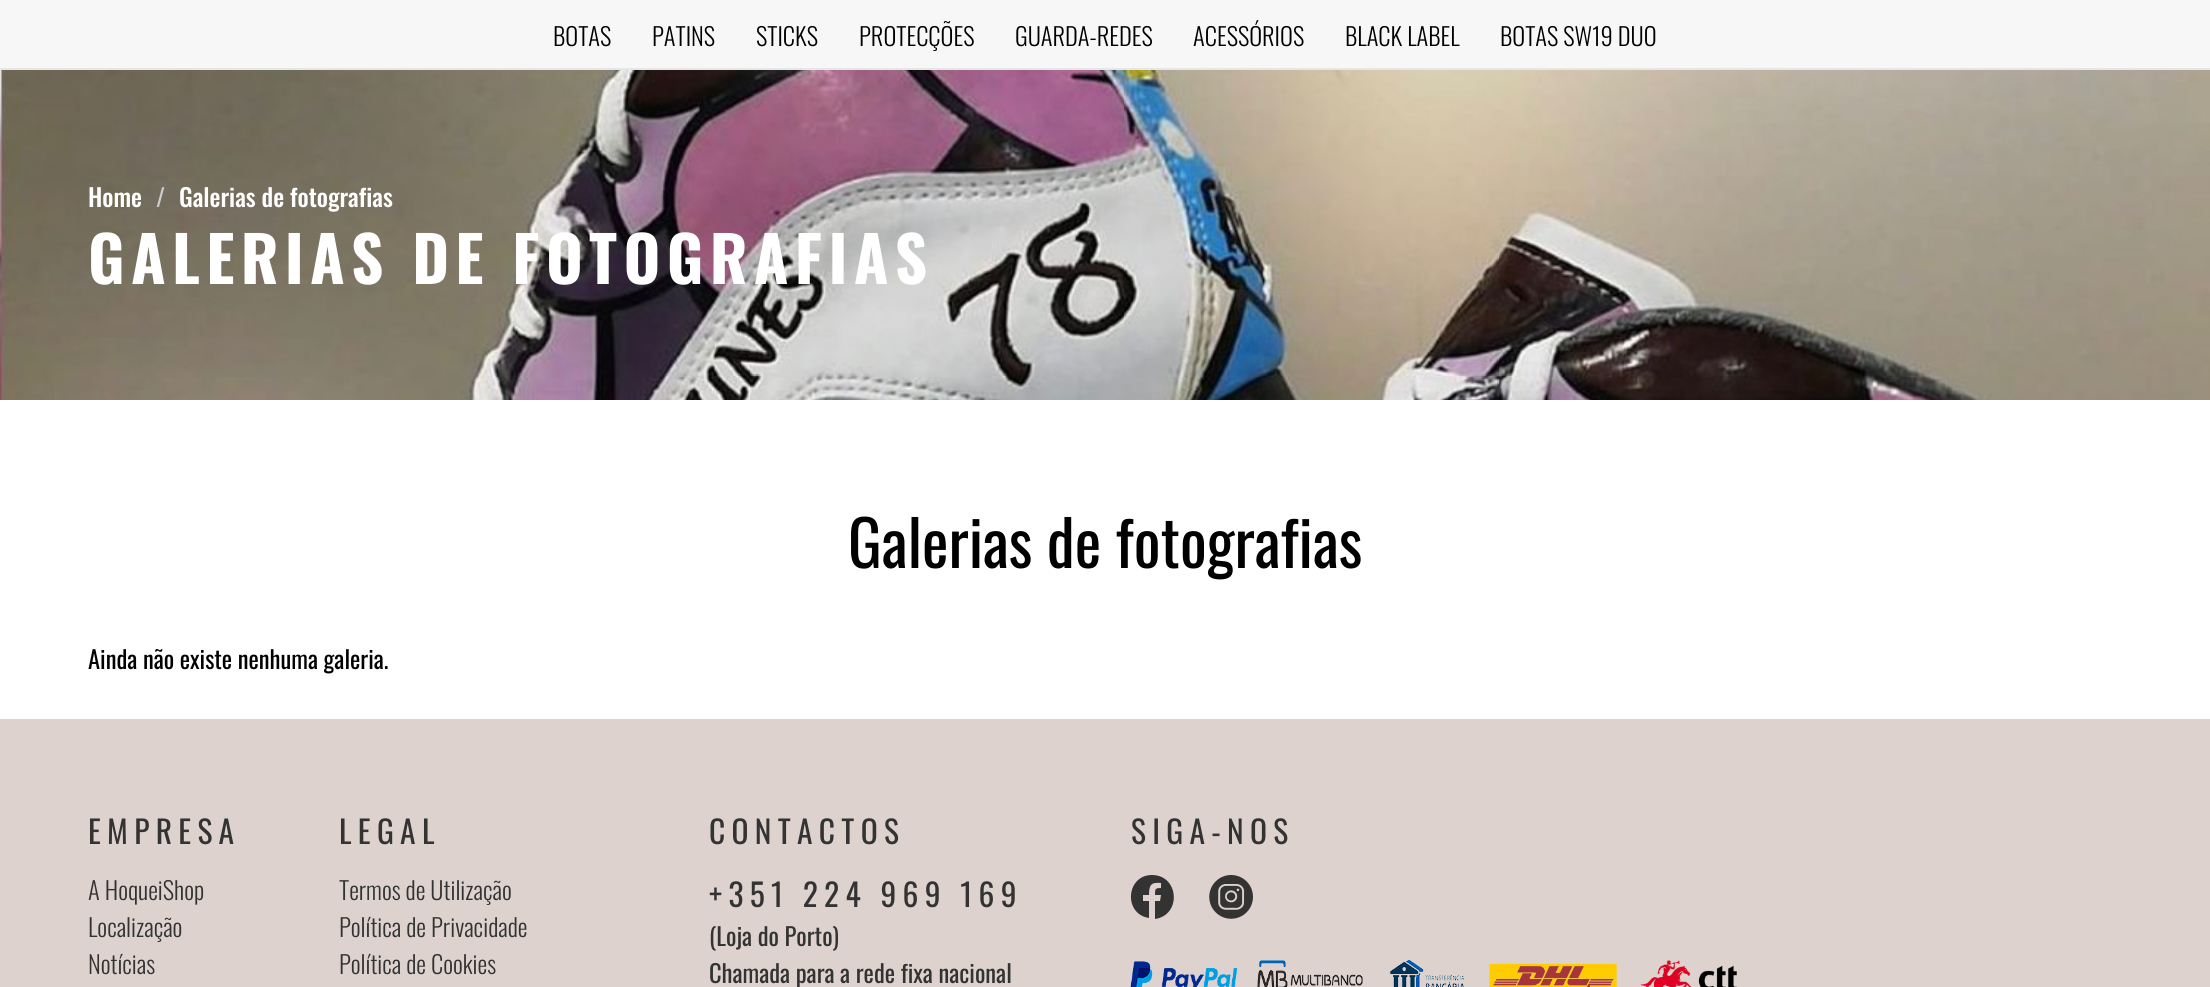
import math
import cairo


def use_color(cr, r, g, b):
  cr.set_source_rgb(r / 255, g / 255, b / 255)

def text(cr, x, y, s, family, size, color, bold=False, italic=False):
  cr.select_font_face(family, cairo.FONT_SLANT_ITALIC if italic else cairo.FONT_SLANT_NORMAL, cairo.FONT_WEIGHT_BOLD if bold else cairo.FONT_WEIGHT_NORMAL)
  cr.set_font_size(size)
  use_color(cr, *color)
  cr.move_to(x, y)
  cr.show_text(s)

def spaced_text(cr, x, y, s, letter, word):
  cr.move_to(x, y)
  for ch in s:
    cr.show_text(ch)
    cr.rel_move_to(letter + word * (ch == ' '), 0)

def box(cr, x, y, w, h, *color):
  use_color(cr, *color)
  cr.rectangle(x, y, w, h)
  cr.fill()

def picture(cr, path, x, y, w, h):
  cr.save()
  cr.set_source_surface(cairo.ImageSurface.create_from_png(path), x, y)
  cr.rectangle(x, y, w, h)
  cr.fill()
  cr.restore()

def draw(cr):
  use_color(cr, 255, 255, 255)
  cr.paint()
  box(cr, 0, 0, 2210, 68, 247, 247, 247)
  box(cr, 0, 68, 2210, 2, 230, 230, 230)
  picture(cr, "img_01.png", 0, 70, 2210, 330)
  box(cr, 0, 719, 2210, 268, 221, 210, 206)
  use_color(cr, 51, 51, 51)
  cr.set_fill_rule(cairo.FILL_RULE_EVEN_ODD)
  cr.new_path()
  cr.move_to(1152, 875)
  cr.curve_to(1126, 875, 1123, 914, 1149, 918)
  cr.line_to(1149, 901)
  cr.line_to(1143, 901)
  cr.line_to(1143, 895)
  cr.line_to(1149, 895)
  cr.curve_to(1149, 885, 1151, 882, 1161, 883)
  cr.line_to(1161, 888)
  cr.curve_to(1155, 888, 1155, 889, 1155, 895)
  cr.line_to(1161, 895)
  cr.line_to(1160, 901)
  cr.line_to(1155, 901)
  cr.line_to(1155, 919)
  cr.curve_to(1182, 915, 1179, 875, 1152, 875)
  cr.close_path()
  cr.fill()
  picture(cr, "img_02.png", 1209, 875, 44, 44)
  picture(cr, "img_03.png", 1130, 959, 607, 28)
  text(cr, 553, 46, "BOTAS", "Oswald Light", 24.5, (0, 0, 0))
  text(cr, 652, 46, "PATINS", "Oswald Light", 24.5, (0, 0, 0))
  text(cr, 756, 46, "STICKS", "Oswald Light", 24.5, (0, 0, 0))
  text(cr, 859, 46, "PROTECÇÕES", "Oswald Light", 24.5, (0, 0, 0))
  text(cr, 1015, 46, "GUARDA-REDES", "Oswald Light", 24.5, (0, 0, 0))
  text(cr, 1193, 46, "ACESSÓRIOS", "Oswald Light", 24.5, (0, 0, 0))
  text(cr, 1345, 46, "BLACK LABEL", "Oswald Light", 24.5, (0, 0, 0))
  text(cr, 1500, 46, "BOTAS SW19 DUO", "Oswald Light", 24.5, (0, 0, 0))
  text(cr, 88, 207, "Home", "Oswald Medium", 24.5, (255, 255, 255))
  text(cr, 156, 207, "/", "Oswald", 24.5, (204, 204, 204))
  text(cr, 179, 207, "Galerias de fotografias", "Oswald Medium", 24.5, (255, 255, 255))
  cr.select_font_face("Oswald", cairo.FONT_SLANT_NORMAL, cairo.FONT_WEIGHT_BOLD)
  cr.set_font_size(63)
  spaced_text(cr, 88, 284, "GALERIAS DE FOTOGRAFIAS", 6.3, 0)
  text(cr, 848, 568, "Galerias de fotografias", "Oswald", 63, (0, 0, 0))
  text(cr, 88, 669, "Ainda não existe nenhuma galeria.", "Oswald", 24.5, (0, 0, 0))
  cr.set_font_size(31.5)
  use_color(cr, 51, 51, 51)
  spaced_text(cr, 88, 844, "EMPRESA", 6.3, 0)
  text(cr, 88, 900, "A HoqueiShop", "Oswald Light", 24.5, (51, 51, 51))
  text(cr, 88, 937, "Localização", "Oswald Light", 24.5, (51, 51, 51))
  text(cr, 88, 974, "Notícias", "Oswald Light", 24.5, (51, 51, 51))
  cr.select_font_face("Oswald")
  cr.set_font_size(31.5)
  spaced_text(cr, 339, 844, "LEGAL", 6.3, 0)
  text(cr, 339, 900, "Termos de Utilização", "Oswald Light", 24.5, (51, 51, 51))
  text(cr, 339, 937, "Política de Privacidade", "Oswald Light", 24.5, (51, 51, 51))
  text(cr, 339, 974, "Política de Cookies", "Oswald Light", 24.5, (51, 51, 51))
  cr.select_font_face("Oswald")
  cr.set_font_size(31.5)
  spaced_text(cr, 709, 844, "CONTACTOS", 6.3, 0)
  spaced_text(cr, 709, 907, "+351 224 969 169", 6.3, 0)
  text(cr, 709, 946, "(Loja do Porto)", "Oswald", 24.5, (51, 51, 51))
  text(cr, 709, 983, "Chamada para a rede fixa nacional", "Oswald", 24.5, (51, 51, 51))
  cr.set_font_size(31.5)
  spaced_text(cr, 1131, 844, "SIGA-NOS", 6.3, 0)


surface = cairo.ImageSurface(cairo.FORMAT_RGB24, 2210, 987)
cr = cairo.Context(surface)
options = cairo.FontOptions()
options.set_hint_metrics(cairo.HINT_METRICS_OFF)
options.set_hint_style(cairo.HINT_STYLE_NONE)
cr.set_font_options(options)
cr.set_miter_limit(4)
draw(cr)
surface.write_to_png("out.png")
